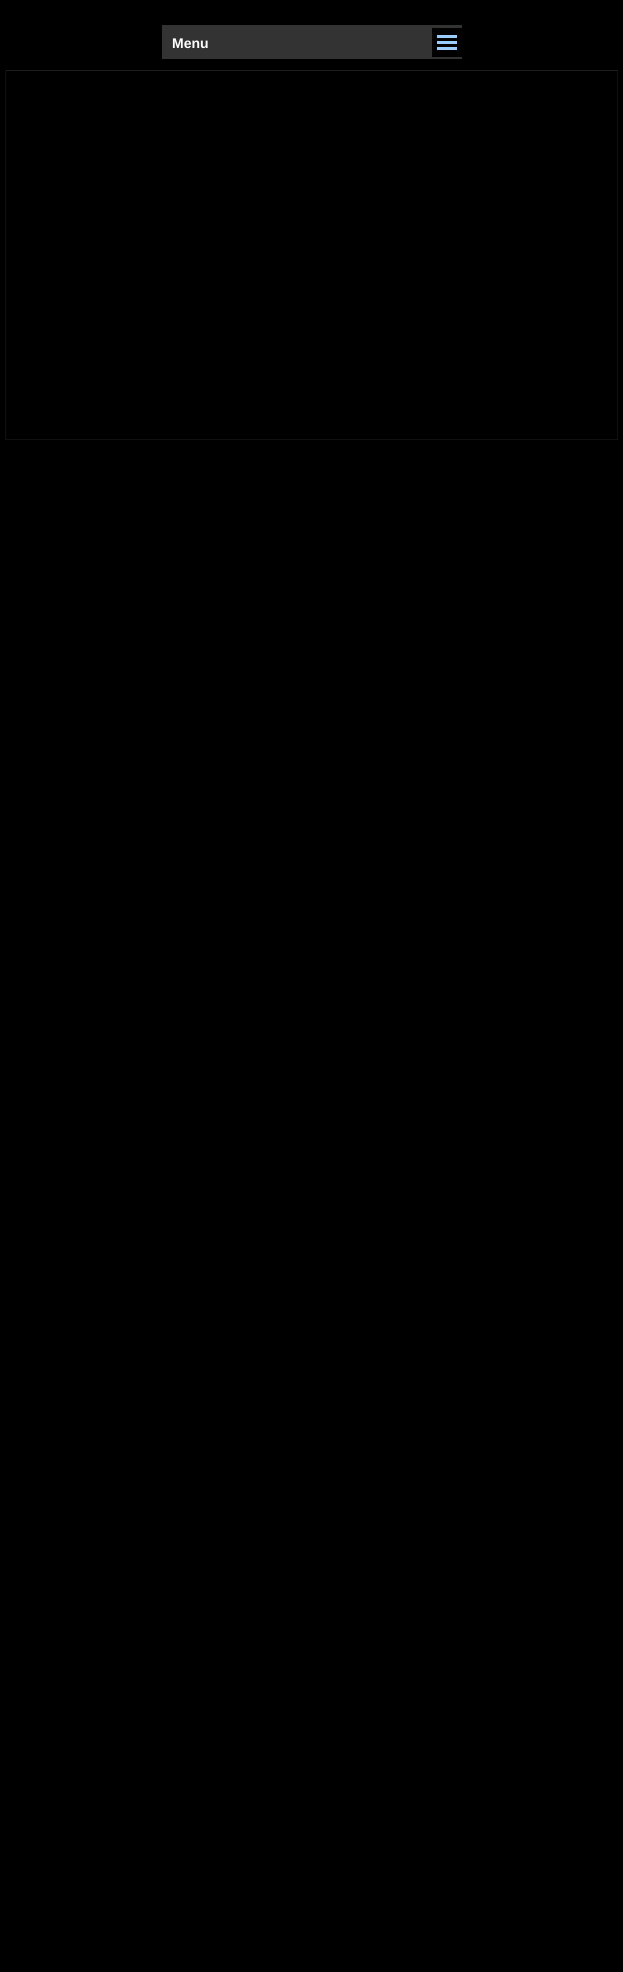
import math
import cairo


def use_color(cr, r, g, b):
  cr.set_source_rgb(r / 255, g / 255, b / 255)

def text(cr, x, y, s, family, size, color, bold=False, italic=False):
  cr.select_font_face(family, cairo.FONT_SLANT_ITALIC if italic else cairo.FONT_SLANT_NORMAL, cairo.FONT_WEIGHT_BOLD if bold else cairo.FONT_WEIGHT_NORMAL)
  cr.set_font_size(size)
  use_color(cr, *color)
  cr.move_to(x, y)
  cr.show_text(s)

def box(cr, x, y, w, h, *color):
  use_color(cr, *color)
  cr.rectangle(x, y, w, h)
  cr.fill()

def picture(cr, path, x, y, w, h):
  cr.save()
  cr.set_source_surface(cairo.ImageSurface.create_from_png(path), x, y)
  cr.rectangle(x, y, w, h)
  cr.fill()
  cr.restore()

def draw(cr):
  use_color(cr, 0, 0, 0)
  cr.paint()
  box(cr, 162, 25, 300, 34, 51, 51, 51)
  picture(cr, "img_01.png", 432, 28, 30, 29)
  picture(cr, "img_02.png", 5, 70, 613, 370)
  text(cr, 172, 48, "Menu", "Liberation Sans", 14, (255, 255, 255), bold=True)


surface = cairo.ImageSurface(cairo.FORMAT_RGB24, 623, 1972)
cr = cairo.Context(surface)
options = cairo.FontOptions()
options.set_hint_metrics(cairo.HINT_METRICS_OFF)
options.set_hint_style(cairo.HINT_STYLE_NONE)
cr.set_font_options(options)
cr.set_miter_limit(4)
draw(cr)
surface.write_to_png("out.png")
